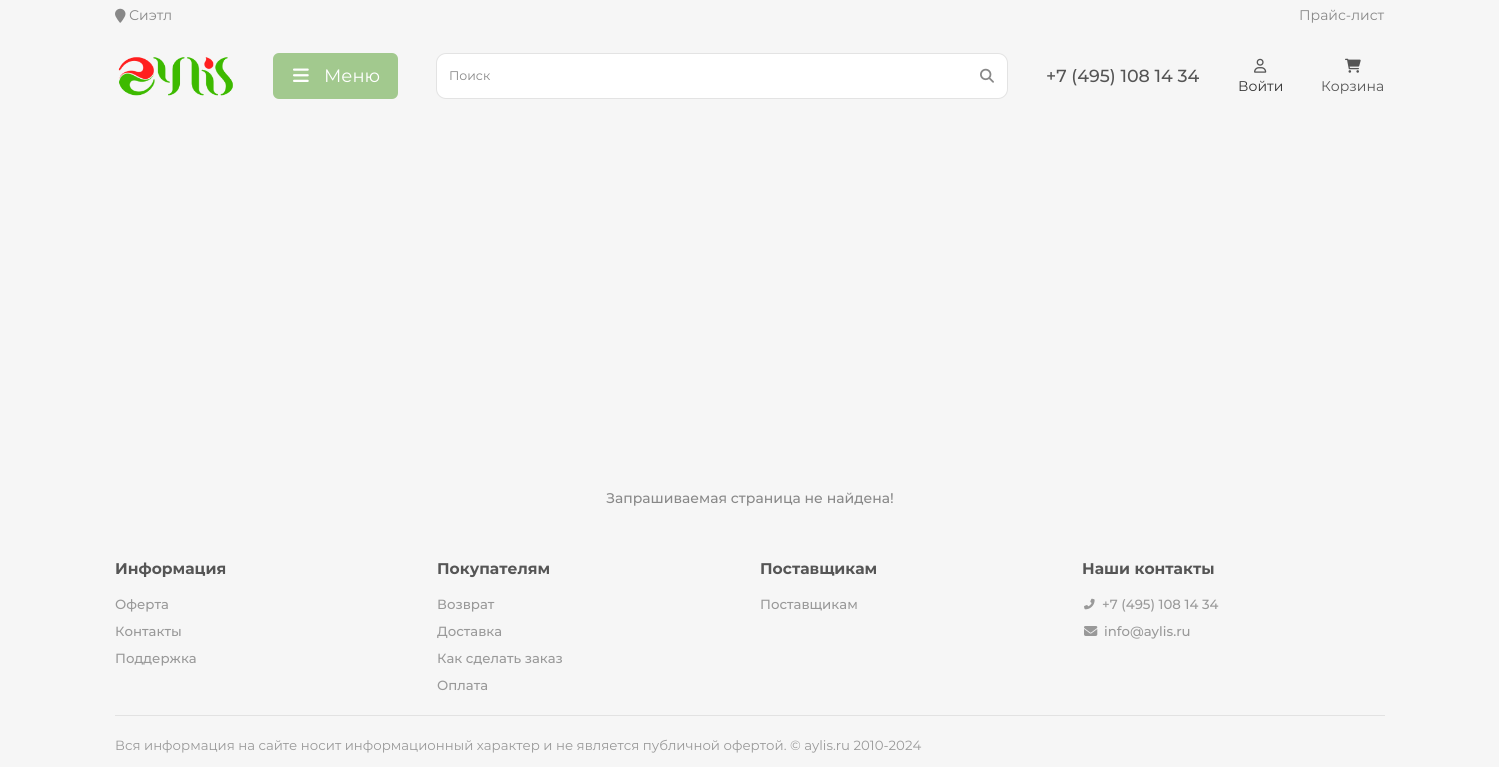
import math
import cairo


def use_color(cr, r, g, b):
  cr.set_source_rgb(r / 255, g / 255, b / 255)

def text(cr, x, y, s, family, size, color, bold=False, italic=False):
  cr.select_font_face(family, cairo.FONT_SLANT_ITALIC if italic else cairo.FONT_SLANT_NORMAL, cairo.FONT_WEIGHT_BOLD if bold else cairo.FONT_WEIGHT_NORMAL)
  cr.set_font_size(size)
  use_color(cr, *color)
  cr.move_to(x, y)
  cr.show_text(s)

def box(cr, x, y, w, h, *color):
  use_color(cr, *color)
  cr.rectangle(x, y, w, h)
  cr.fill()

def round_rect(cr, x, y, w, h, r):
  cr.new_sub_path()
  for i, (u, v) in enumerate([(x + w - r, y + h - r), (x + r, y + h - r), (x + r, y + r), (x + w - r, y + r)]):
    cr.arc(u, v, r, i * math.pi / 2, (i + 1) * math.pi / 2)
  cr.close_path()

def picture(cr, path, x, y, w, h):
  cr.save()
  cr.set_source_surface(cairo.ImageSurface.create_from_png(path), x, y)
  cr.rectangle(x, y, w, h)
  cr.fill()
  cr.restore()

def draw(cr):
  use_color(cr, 246, 246, 246)
  cr.paint()
  picture(cr, "img_01.png", 115, 8, 11, 15)
  picture(cr, "img_02.png", 118, 57, 115, 39)
  use_color(cr, 162, 201, 142)
  round_rect(cr, 273, 53, 125, 46, 6)
  cr.fill()
  picture(cr, "img_03.png", 293, 68, 16, 14)
  use_color(cr, 255, 255, 255)
  round_rect(cr, 436.5, 53.5, 571, 45, 9.5)
  cr.fill_preserve()
  use_color(cr, 227, 227, 227)
  cr.set_line_width(1)
  cr.stroke()
  picture(cr, "img_04.png", 980, 68, 14, 15)
  picture(cr, "img_05.png", 1254, 58, 13, 15)
  picture(cr, "img_06.png", 1345, 58, 16, 15)
  picture(cr, "img_07.png", 1084, 598, 11, 12)
  picture(cr, "img_08.png", 1084, 626, 14, 10)
  box(cr, 115, 715, 1270, 1, 226, 226, 226)
  text(cr, 129, 20, "Сиэтл", "Montserrat", 14, (136, 136, 136))
  text(cr, 1299, 20, "Прайс-лист", "Montserrat", 14, (136, 136, 136))
  text(cr, 324, 82, "Меню", "Montserrat", 18, (255, 255, 255))
  text(cr, 449, 80, "Поиск", "Montserrat", 12.5, (136, 136, 136))
  text(cr, 1046, 82, "+7 (495) 108 14 34", "Montserrat Medium", 17.5, (85, 85, 85))
  text(cr, 1238, 91, "Войти", "Montserrat", 14, (51, 51, 51))
  text(cr, 1321, 91, "Корзина", "Montserrat", 14, (85, 85, 85))
  text(cr, 606, 503, "Запрашиваемая страница не найдена!", "Montserrat Medium", 14, (136, 136, 136))
  text(cr, 115, 574, "Информация", "Montserrat", 15.5, (85, 85, 85), bold=True)
  text(cr, 115, 609, "Оферта", "Montserrat Medium", 13.3, (153, 153, 153))
  text(cr, 115, 636, "Контакты", "Montserrat Medium", 13.3, (153, 153, 153))
  text(cr, 115, 663, "Поддержка", "Montserrat Medium", 13.3, (153, 153, 153))
  text(cr, 437, 574, "Покупателям", "Montserrat", 15.5, (85, 85, 85), bold=True)
  text(cr, 437, 609, "Возврат", "Montserrat Medium", 13.3, (153, 153, 153))
  text(cr, 437, 636, "Доставка", "Montserrat Medium", 13.3, (153, 153, 153))
  text(cr, 437, 663, "Как сделать заказ", "Montserrat Medium", 13.3, (153, 153, 153))
  text(cr, 437, 690, "Оплата", "Montserrat Medium", 13.3, (153, 153, 153))
  text(cr, 760, 574, "Поставщикам", "Montserrat", 15.5, (85, 85, 85), bold=True)
  text(cr, 760, 609, "Поставщикам", "Montserrat Medium", 13.3, (153, 153, 153))
  text(cr, 1082, 574, "Наши контакты", "Montserrat", 15.5, (85, 85, 85), bold=True)
  text(cr, 1102, 609, "+7 (495) 108 14 34", "Montserrat Medium", 13.3, (153, 153, 153))
  text(cr, 1104, 636, "info@aylis.ru", "Montserrat Medium", 13.3, (153, 153, 153))
  text(cr, 115, 750, "Вся информация на сайте носит информационный характер и не является публичной офертой. © aylis.ru 2010-2024", "Montserrat", 13.3, (153, 153, 153))


surface = cairo.ImageSurface(cairo.FORMAT_RGB24, 1499, 767)
cr = cairo.Context(surface)
options = cairo.FontOptions()
options.set_hint_metrics(cairo.HINT_METRICS_OFF)
options.set_hint_style(cairo.HINT_STYLE_NONE)
cr.set_font_options(options)
cr.set_miter_limit(4)
draw(cr)
surface.write_to_png("out.png")
